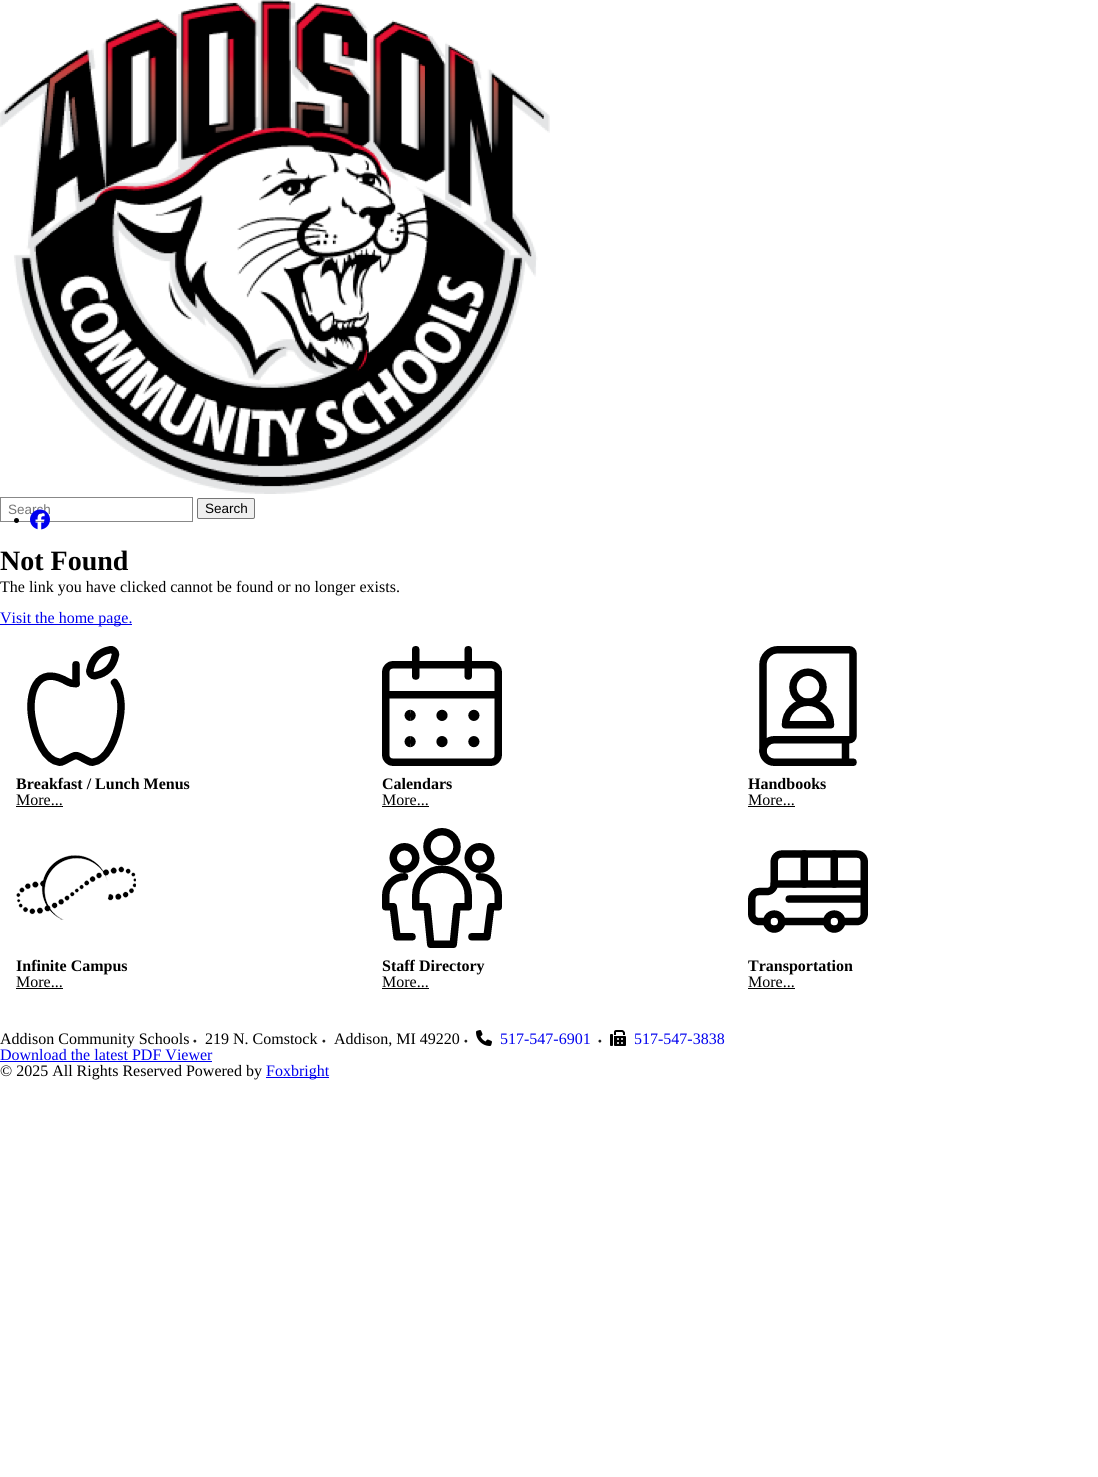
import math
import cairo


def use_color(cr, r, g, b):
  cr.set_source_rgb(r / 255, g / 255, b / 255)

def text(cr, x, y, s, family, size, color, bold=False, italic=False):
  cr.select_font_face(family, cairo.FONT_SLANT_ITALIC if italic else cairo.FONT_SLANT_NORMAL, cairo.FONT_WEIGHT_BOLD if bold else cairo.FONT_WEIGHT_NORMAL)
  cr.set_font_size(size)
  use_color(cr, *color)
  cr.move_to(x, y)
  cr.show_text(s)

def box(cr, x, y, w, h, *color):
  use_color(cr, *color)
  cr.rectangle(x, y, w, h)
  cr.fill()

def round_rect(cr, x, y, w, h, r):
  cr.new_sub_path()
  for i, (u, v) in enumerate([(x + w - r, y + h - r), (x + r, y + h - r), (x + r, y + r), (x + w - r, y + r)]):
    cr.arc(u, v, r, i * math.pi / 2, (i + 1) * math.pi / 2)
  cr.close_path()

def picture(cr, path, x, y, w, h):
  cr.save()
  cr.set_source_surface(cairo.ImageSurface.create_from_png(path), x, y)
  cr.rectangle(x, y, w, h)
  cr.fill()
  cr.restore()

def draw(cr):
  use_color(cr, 255, 255, 255)
  cr.paint()
  picture(cr, "img_01.png", 0, 0, 550, 494)
  cr.rectangle(0.5, 497.5, 192, 24)
  use_color(cr, 136, 136, 136)
  cr.set_line_width(1)
  cr.stroke()
  use_color(cr, 239, 239, 239)
  round_rect(cr, 197.5, 498.5, 57, 20, 1.5)
  cr.fill_preserve()
  use_color(cr, 118, 118, 118)
  cr.stroke()
  use_color(cr, 0, 0, 0)
  cr.arc(16.5, 520.5, 2.5, 0, 2 * math.pi)
  cr.fill()
  box(cr, 0, 624, 132, 1, 0, 0, 238)
  picture(cr, "img_03.png", 27, 646, 98, 120)
  box(cr, 16, 806, 47, 1, 0, 0, 0)
  picture(cr, "img_04.png", 382, 646, 120, 120)
  box(cr, 382, 806, 47, 1, 0, 0, 0)
  picture(cr, "img_05.png", 759, 646, 98, 120)
  box(cr, 748, 806, 47, 1, 0, 0, 0)
  picture(cr, "img_06.png", 16, 855, 120, 65)
  box(cr, 16, 988, 47, 1, 0, 0, 0)
  picture(cr, "img_07.png", 382, 828, 120, 120)
  box(cr, 382, 988, 47, 1, 0, 0, 0)
  picture(cr, "img_08.png", 748, 850, 120, 83)
  box(cr, 748, 988, 47, 1, 0, 0, 0)
  picture(cr, "img_09.png", 193, 1039, 4, 4)
  picture(cr, "img_09.png", 322, 1039, 4, 4)
  picture(cr, "img_09.png", 464, 1039, 4, 4)
  picture(cr, "img_10.png", 476, 1030, 16, 16)
  picture(cr, "img_09.png", 598, 1039, 4, 4)
  picture(cr, "img_11.png", 610, 1030, 16, 16)
  box(cr, 0, 1061, 212, 1, 0, 0, 238)
  box(cr, 266, 1077, 63, 1, 0, 0, 238)
  text(cr, 8, 514, "Search", "Liberation Sans", 13.5, (117, 117, 117))
  text(cr, 205, 513, "Search", "Liberation Sans", 13.5, (0, 0, 0))
  picture(cr, "img_02.png", 30, 509, 20, 21)
  text(cr, 0, 570, "Not Found", "Liberation Serif", 28, (0, 0, 0), bold=True)
  text(cr, 0, 592, "The link you have clicked cannot be found or no longer exists.", "Liberation Serif", 16, (0, 0, 0))
  text(cr, 0, 623, "Visit the home page.", "Liberation Serif", 16, (0, 0, 238))
  text(cr, 16, 789, "Breakfast / Lunch Menus", "Liberation Serif", 16, (0, 0, 0), bold=True)
  text(cr, 16, 805, "More...", "Liberation Serif", 16, (0, 0, 0))
  text(cr, 382, 789, "Calendars", "Liberation Serif", 16, (0, 0, 0), bold=True)
  text(cr, 382, 805, "More...", "Liberation Serif", 16, (0, 0, 0))
  text(cr, 748, 789, "Handbooks", "Liberation Serif", 16, (0, 0, 0), bold=True)
  text(cr, 748, 805, "More...", "Liberation Serif", 16, (0, 0, 0))
  text(cr, 16, 971, "Infinite Campus", "Liberation Serif", 16, (0, 0, 0), bold=True)
  text(cr, 16, 987, "More...", "Liberation Serif", 16, (0, 0, 0))
  text(cr, 382, 971, "Staff Directory", "Liberation Serif", 16, (0, 0, 0), bold=True)
  text(cr, 382, 987, "More...", "Liberation Serif", 16, (0, 0, 0))
  text(cr, 748, 971, "Transportation", "Liberation Serif", 16, (0, 0, 0), bold=True)
  text(cr, 748, 987, "More...", "Liberation Serif", 16, (0, 0, 0))
  text(cr, 0, 1044, "Addison Community Schools", "Liberation Serif", 16, (0, 0, 0))
  text(cr, 205, 1044, "219 N. Comstock", "Liberation Serif", 16, (0, 0, 0))
  text(cr, 334, 1044, "Addison, MI 49220", "Liberation Serif", 16, (0, 0, 0))
  text(cr, 500, 1044, "517-547-6901", "Liberation Serif", 16, (0, 0, 238))
  text(cr, 634, 1044, "517-547-3838", "Liberation Serif", 16, (0, 0, 238))
  text(cr, 0, 1060, "Download the latest PDF Viewer", "Liberation Serif", 16, (0, 0, 238))
  text(cr, 0, 1076, "© 2025 All Rights Reserved Powered by", "Liberation Serif", 16, (0, 0, 0))
  text(cr, 266, 1076, "Foxbright", "Liberation Serif", 16, (0, 0, 238))


surface = cairo.ImageSurface(cairo.FORMAT_RGB24, 1098, 1477)
cr = cairo.Context(surface)
options = cairo.FontOptions()
options.set_hint_metrics(cairo.HINT_METRICS_OFF)
options.set_hint_style(cairo.HINT_STYLE_NONE)
cr.set_font_options(options)
cr.set_miter_limit(4)
draw(cr)
surface.write_to_png("out.png")
